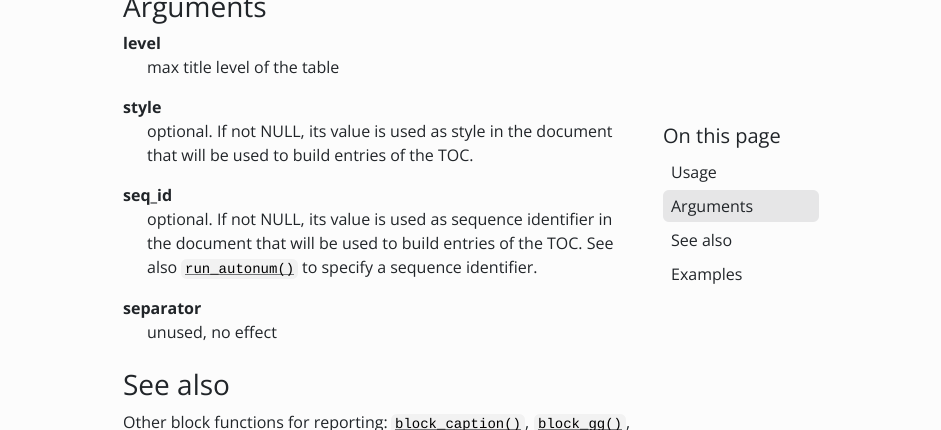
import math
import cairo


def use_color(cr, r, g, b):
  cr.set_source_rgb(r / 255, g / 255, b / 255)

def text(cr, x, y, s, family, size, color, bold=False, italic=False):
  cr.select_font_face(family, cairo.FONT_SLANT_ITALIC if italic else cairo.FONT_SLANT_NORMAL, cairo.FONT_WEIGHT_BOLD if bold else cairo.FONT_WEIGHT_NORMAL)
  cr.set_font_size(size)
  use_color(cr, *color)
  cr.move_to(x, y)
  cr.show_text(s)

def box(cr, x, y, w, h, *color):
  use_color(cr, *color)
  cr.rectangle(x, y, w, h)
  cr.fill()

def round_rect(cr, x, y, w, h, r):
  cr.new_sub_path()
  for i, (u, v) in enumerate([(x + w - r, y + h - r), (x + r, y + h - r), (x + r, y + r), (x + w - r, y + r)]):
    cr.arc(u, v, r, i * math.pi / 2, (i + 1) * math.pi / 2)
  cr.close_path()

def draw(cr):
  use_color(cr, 252, 252, 252)
  cr.paint()
  use_color(cr, 242, 242, 242)
  round_rect(cr, 181, 259, 117, 20, 6)
  cr.fill()
  box(cr, 185, 274, 109, 1, 117, 119, 121)
  use_color(cr, 242, 242, 242)
  round_rect(cr, 391, 414, 134, 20, 6)
  cr.fill()
  box(cr, 395, 429, 126, 1, 117, 119, 121)
  use_color(cr, 242, 242, 242)
  round_rect(cr, 534, 414, 92, 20, 6)
  cr.fill()
  box(cr, 538, 429, 84, 1, 117, 119, 121)
  use_color(cr, 230, 230, 231)
  round_rect(cr, 663, 190, 156, 32, 6)
  cr.fill()
  text(cr, 123, 17, "Arguments", "Open Sans", 28, (33, 37, 41))
  text(cr, 123, 49, "level", "Open Sans", 16, (33, 37, 41), bold=True)
  text(cr, 147, 73, "max title level of the table", "Open Sans", 16, (33, 37, 41))
  text(cr, 123, 113, "style", "Open Sans", 16, (33, 37, 41), bold=True)
  text(cr, 147, 137, "optional. If not NULL, its value is used as style in the document", "Open Sans", 16, (33, 37, 41))
  text(cr, 147, 161, "that will be used to build entries of the TOC.", "Open Sans", 16, (33, 37, 41))
  text(cr, 123, 201, "seq_id", "Open Sans", 16, (33, 37, 41), bold=True)
  text(cr, 147, 225, "optional. If not NULL, its value is used as sequence identifier in", "Open Sans", 16, (33, 37, 41))
  text(cr, 147, 249, "the document that will be used to build entries of the TOC. See", "Open Sans", 16, (33, 37, 41))
  text(cr, 147, 273, "also", "Open Sans", 16, (33, 37, 41))
  text(cr, 185, 273, "run_autonum()", "Liberation Mono", 14, (0, 0, 0))
  text(cr, 302, 273, "to specify a sequence identifier.", "Open Sans", 16, (33, 37, 41))
  text(cr, 123, 314, "separator", "Open Sans", 16, (33, 37, 41), bold=True)
  text(cr, 147, 338, "unused, no effect", "Open Sans", 16, (33, 37, 41))
  text(cr, 123, 395, "See also", "Open Sans", 28, (33, 37, 41))
  text(cr, 123, 428, "Other block functions for reporting:", "Open Sans", 16, (33, 37, 41))
  text(cr, 395, 428, "block_caption()", "Liberation Mono", 14, (0, 0, 0))
  text(cr, 525, 428, ",", "Open Sans", 16, (33, 37, 41))
  text(cr, 538, 428, "block_gg()", "Liberation Mono", 14, (0, 0, 0))
  text(cr, 626, 428, ",", "Open Sans", 16, (33, 37, 41))
  text(cr, 663, 143, "On this page", "Open Sans", 20, (33, 37, 41))
  text(cr, 671, 178, "Usage", "Open Sans", 16, (33, 37, 41))
  text(cr, 671, 212, "Arguments", "Open Sans", 16, (33, 37, 41))
  text(cr, 671, 246, "See also", "Open Sans", 16, (33, 37, 41))
  text(cr, 671, 280, "Examples", "Open Sans", 16, (33, 37, 41))


surface = cairo.ImageSurface(cairo.FORMAT_RGB24, 941, 430)
cr = cairo.Context(surface)
options = cairo.FontOptions()
options.set_hint_metrics(cairo.HINT_METRICS_OFF)
options.set_hint_style(cairo.HINT_STYLE_NONE)
cr.set_font_options(options)
cr.set_miter_limit(4)
draw(cr)
surface.write_to_png("out.png")
